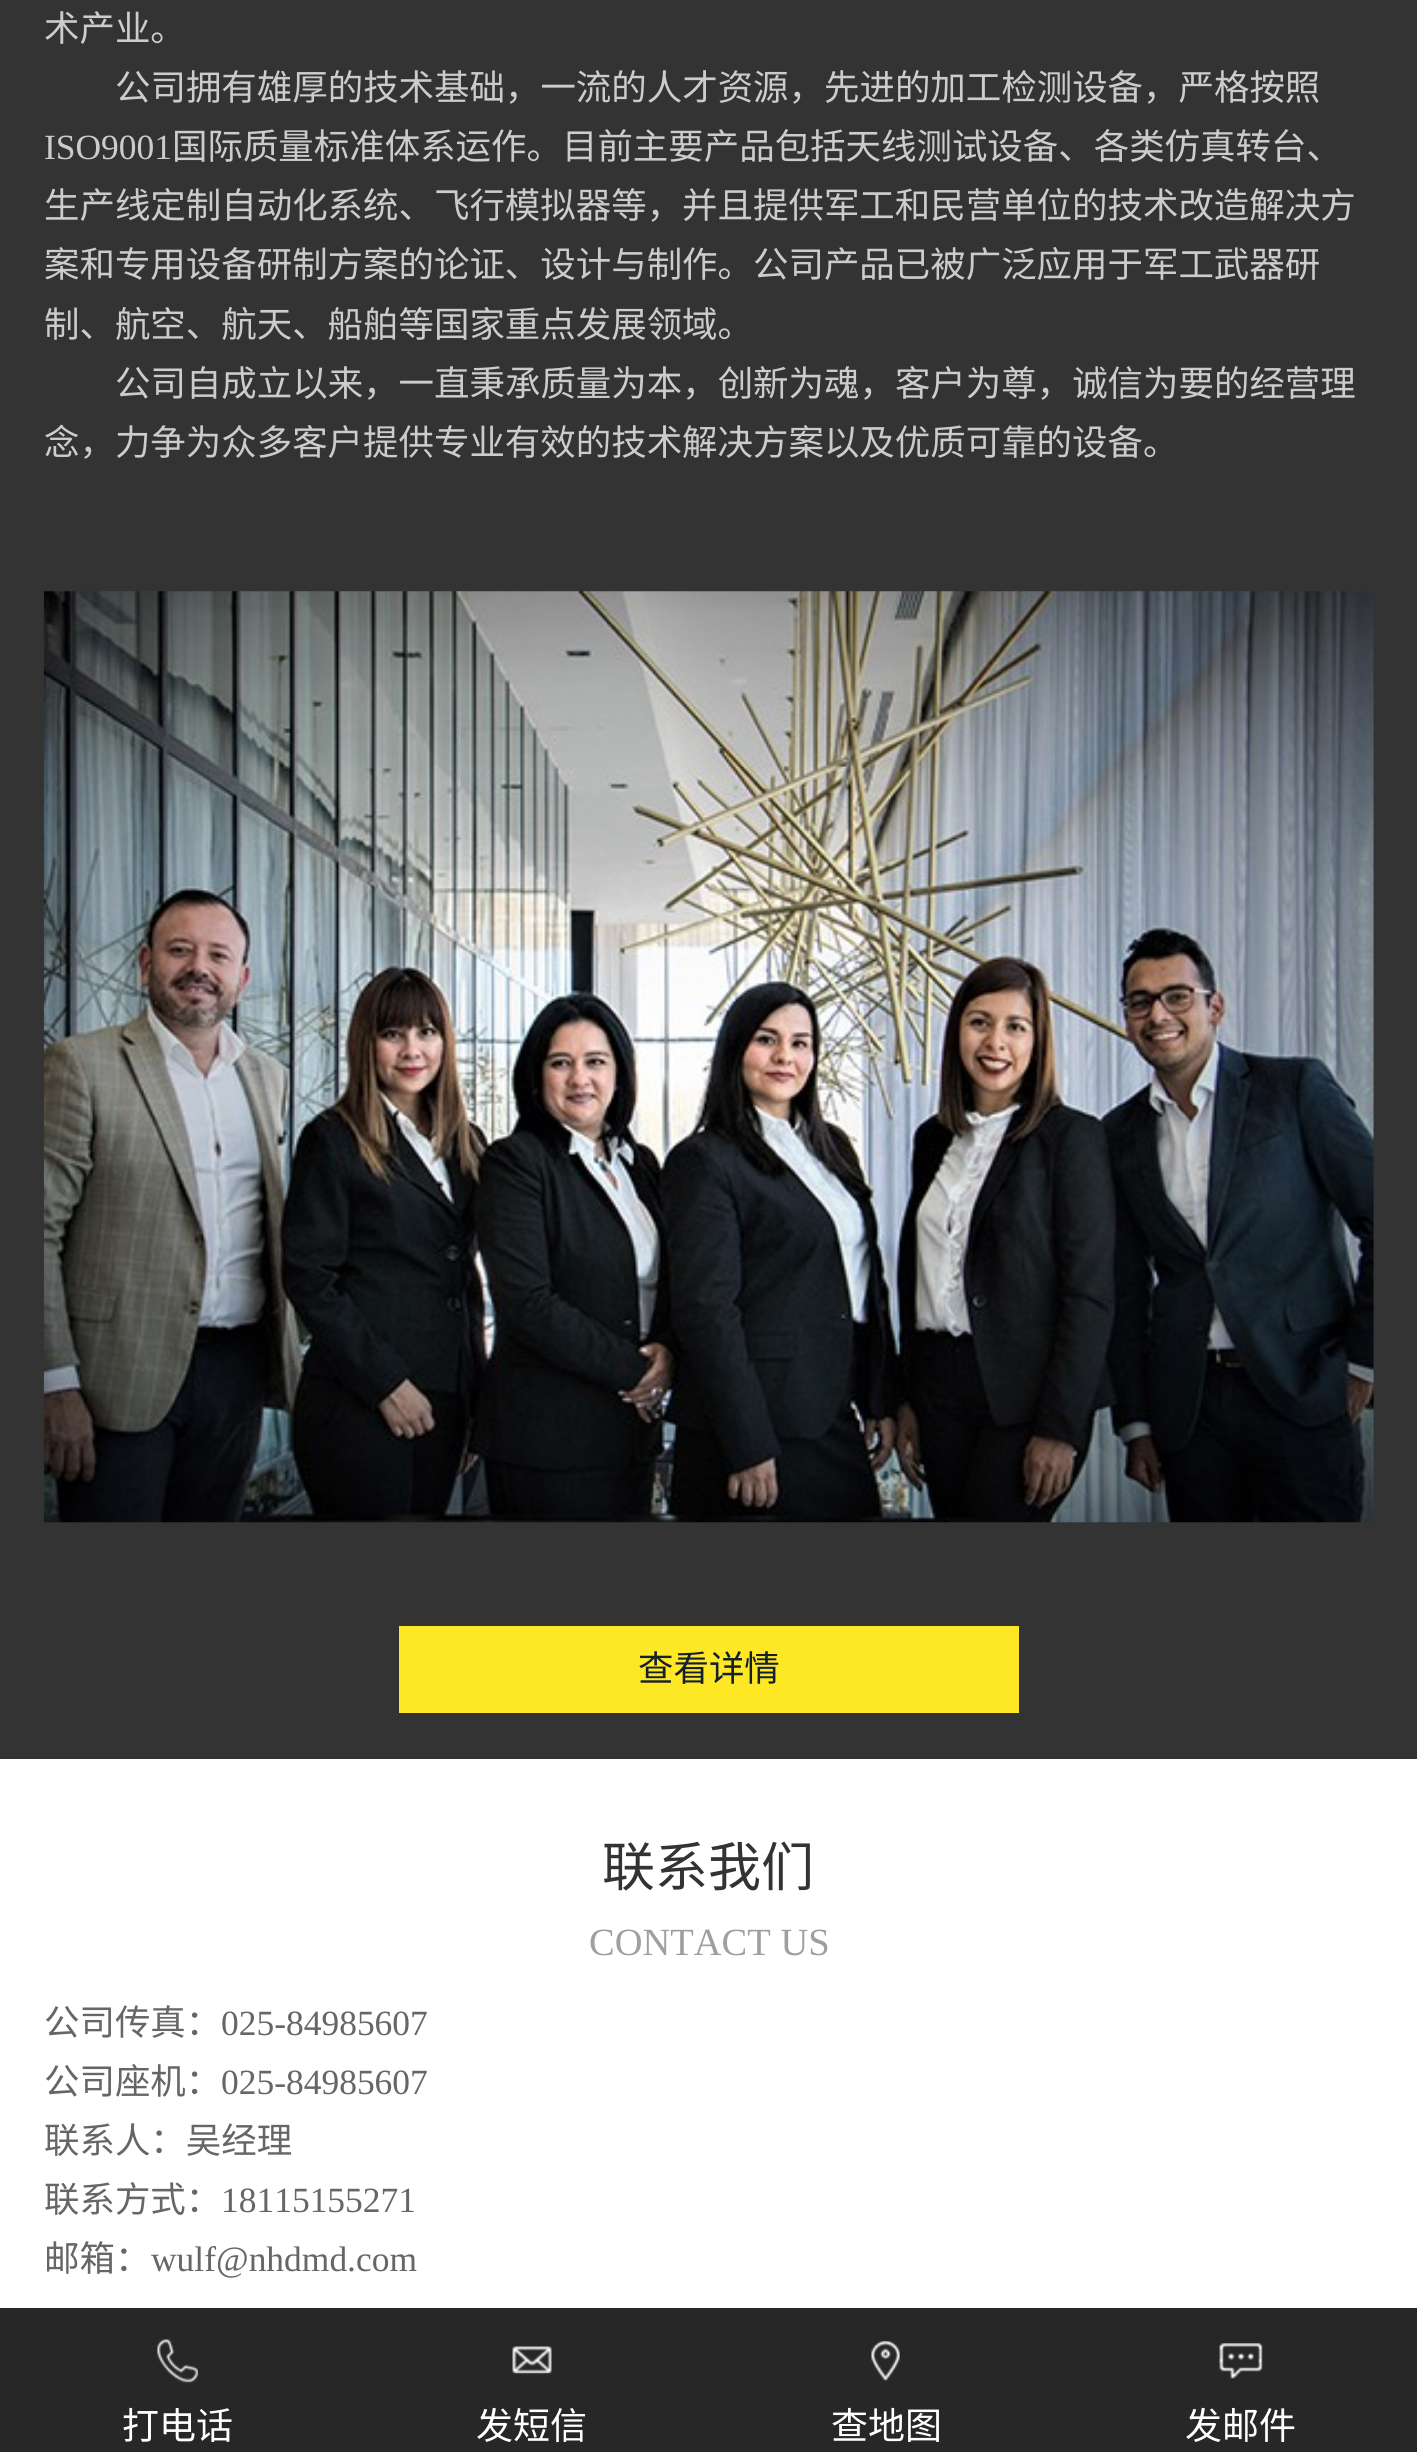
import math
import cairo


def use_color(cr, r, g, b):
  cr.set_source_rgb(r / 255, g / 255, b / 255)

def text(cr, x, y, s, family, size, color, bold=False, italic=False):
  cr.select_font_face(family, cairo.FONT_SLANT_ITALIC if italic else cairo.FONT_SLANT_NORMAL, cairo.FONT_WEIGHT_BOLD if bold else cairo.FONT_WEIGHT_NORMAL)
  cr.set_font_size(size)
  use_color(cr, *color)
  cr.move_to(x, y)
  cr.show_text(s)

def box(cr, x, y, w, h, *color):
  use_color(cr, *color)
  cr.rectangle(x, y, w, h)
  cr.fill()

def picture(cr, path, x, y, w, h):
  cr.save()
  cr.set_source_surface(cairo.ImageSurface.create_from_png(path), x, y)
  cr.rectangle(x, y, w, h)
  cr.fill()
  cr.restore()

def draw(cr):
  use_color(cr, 255, 255, 255)
  cr.paint()
  box(cr, 0, 0, 1417, 1759, 51, 51, 51)
  picture(cr, "img_01.png", 43, 591, 1331, 932)
  box(cr, 399, 1626, 620, 87, 254, 231, 37)
  box(cr, 0, 2308, 1417, 144, 39, 39, 39)
  picture(cr, "img_02.png", 157, 2339, 41, 44)
  picture(cr, "img_03.png", 512, 2346, 40, 28)
  picture(cr, "img_04.png", 871, 2341, 29, 40)
  picture(cr, "img_05.png", 1219, 2343, 44, 36)
  text(cr, 44, 41, "术产业。", "Noto Sans CJK SC", 35.45, (204, 204, 204))
  text(cr, 115, 100, "公司拥有雄厚的技术基础，一流的人才资源，先进的加工检测设备，严格按照", "Noto Sans CJK SC", 35.45, (204, 204, 204))
  text(cr, 44, 159, "ISO9001", "Liberation Serif", 35.45, (204, 204, 204))
  text(cr, 172, 159, "国际质量标准体系运作。目前主要产品包括天线测试设备、各类仿真转台、", "Noto Sans CJK SC", 35.45, (204, 204, 204))
  text(cr, 44, 218, "生产线定制自动化系统、飞行模拟器等，并且提供军工和民营单位的技术改造解决方", "Noto Sans CJK SC", 35.45, (204, 204, 204))
  text(cr, 44, 277, "案和专用设备研制方案的论证、设计与制作。公司产品已被广泛应用于军工武器研", "Noto Sans CJK SC", 35.45, (204, 204, 204))
  text(cr, 44, 337, "制、航空、航天、船舶等国家重点发展领域。", "Noto Sans CJK SC", 35.45, (204, 204, 204))
  text(cr, 115, 396, "公司自成立以来，一直秉承质量为本，创新为魂，客户为尊，诚信为要的经营理", "Noto Sans CJK SC", 35.45, (204, 204, 204))
  text(cr, 44, 455, "念，力争为众多客户提供专业有效的技术解决方案以及优质可靠的设备。", "Noto Sans CJK SC", 35.45, (204, 204, 204))
  text(cr, 638, 1681, "查看详情", "Noto Sans CJK SC", 35.45, (20, 32, 46))
  text(cr, 602, 1886, "联系我们", "Noto Sans CJK SC", 53, (51, 51, 51))
  text(cr, 589, 1955, "CONTACT US", "Liberation Serif", 38.5, (160, 159, 159))
  text(cr, 44, 2035, "公司传真：", "Noto Sans CJK SC", 35.45, (102, 102, 102))
  text(cr, 221, 2035, "025-84985607", "Liberation Serif", 35.45, (102, 102, 102))
  text(cr, 44, 2094, "公司座机：", "Noto Sans CJK SC", 35.45, (102, 102, 102))
  text(cr, 221, 2094, "025-84985607", "Liberation Serif", 35.45, (102, 102, 102))
  text(cr, 44, 2153, "联系人：吴经理", "Noto Sans CJK SC", 35.45, (102, 102, 102))
  text(cr, 44, 2212, "联系方式：", "Noto Sans CJK SC", 35.45, (102, 102, 102))
  text(cr, 221, 2212, "18115155271", "Liberation Serif", 35.45, (102, 102, 102))
  text(cr, 44, 2271, "邮箱：", "Noto Sans CJK SC", 35.45, (102, 102, 102))
  text(cr, 151, 2271, "wulf@nhdmd.com", "Liberation Serif", 35.45, (102, 102, 102))
  text(cr, 122, 2439, "打电话", "Noto Sans CJK SC", 37, (255, 255, 255))
  text(cr, 476, 2439, "发短信", "Noto Sans CJK SC", 37, (255, 255, 255))
  text(cr, 831, 2439, "查地图", "Noto Sans CJK SC", 37, (255, 255, 255))
  text(cr, 1185, 2439, "发邮件", "Noto Sans CJK SC", 37, (255, 255, 255))


surface = cairo.ImageSurface(cairo.FORMAT_RGB24, 1417, 2452)
cr = cairo.Context(surface)
options = cairo.FontOptions()
options.set_hint_metrics(cairo.HINT_METRICS_OFF)
options.set_hint_style(cairo.HINT_STYLE_NONE)
cr.set_font_options(options)
cr.set_miter_limit(4)
draw(cr)
surface.write_to_png("out.png")
